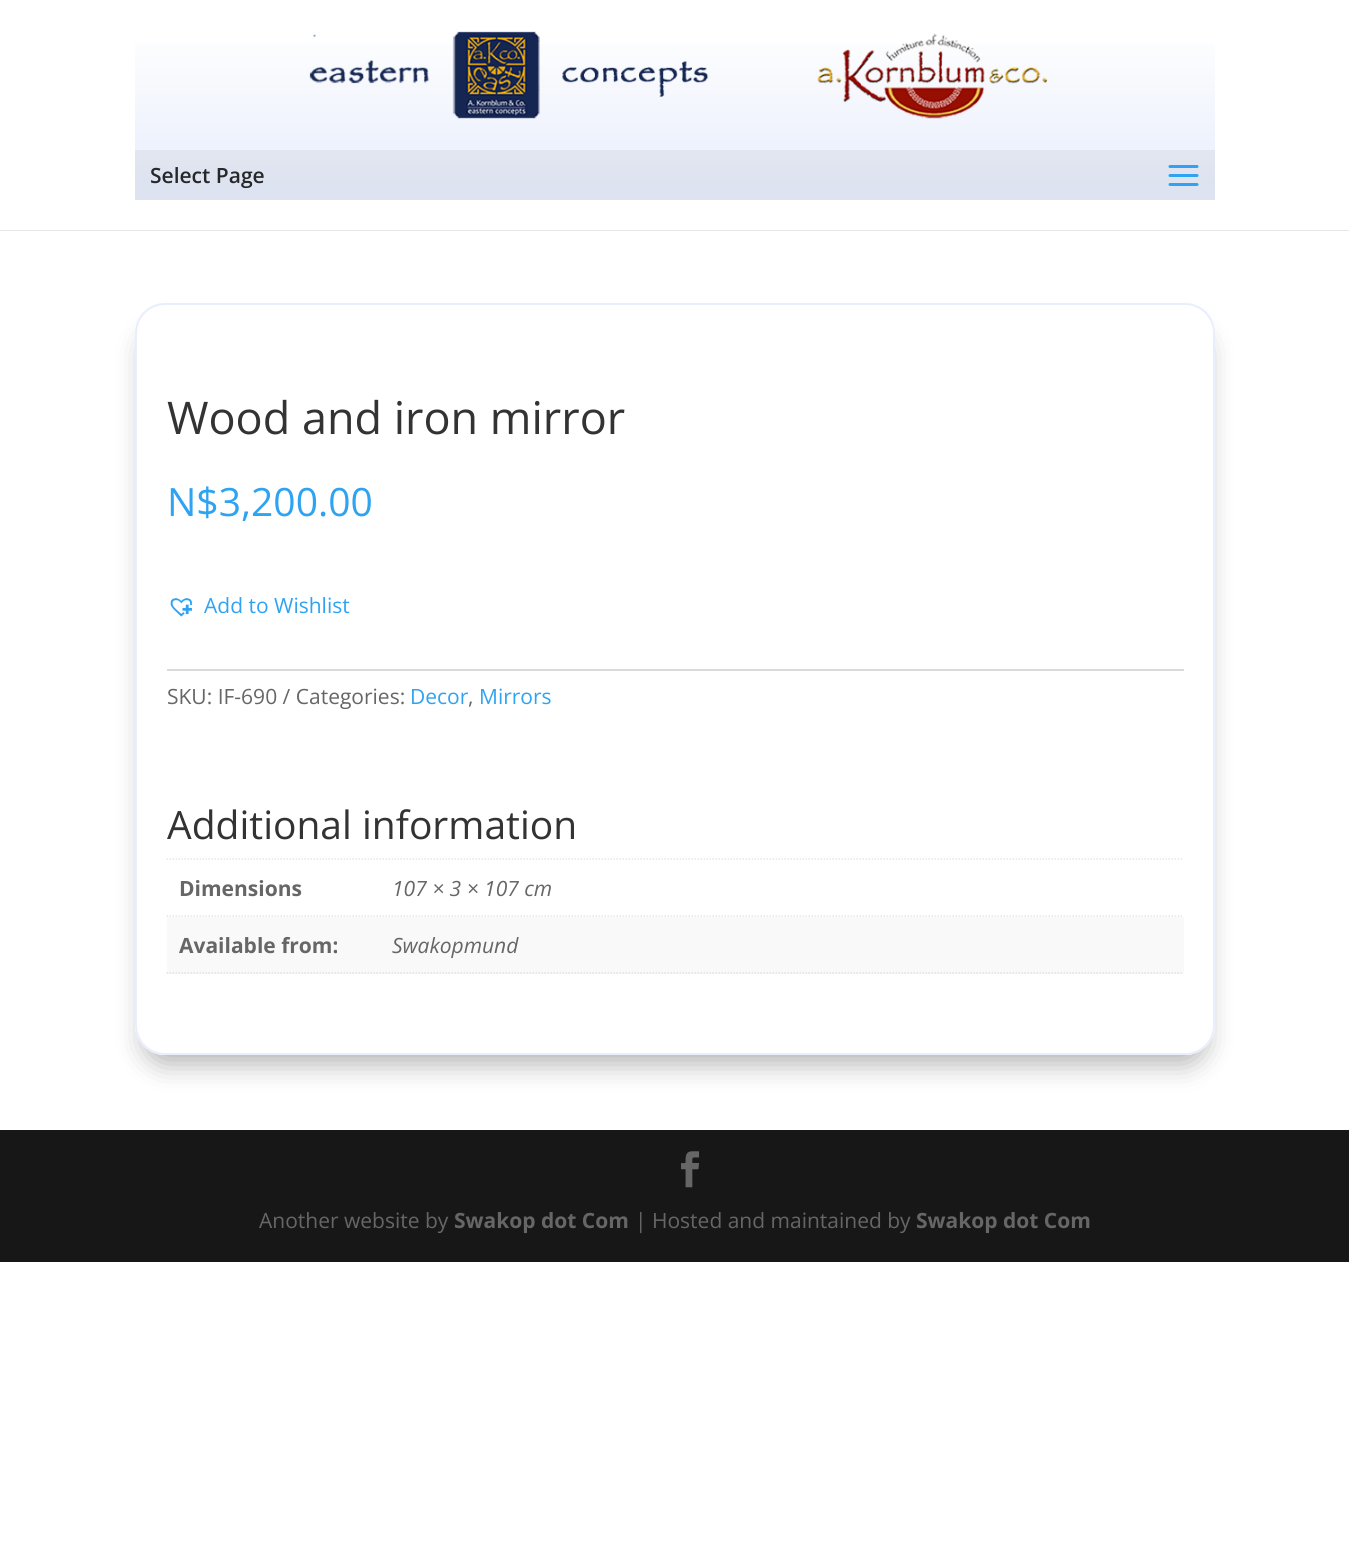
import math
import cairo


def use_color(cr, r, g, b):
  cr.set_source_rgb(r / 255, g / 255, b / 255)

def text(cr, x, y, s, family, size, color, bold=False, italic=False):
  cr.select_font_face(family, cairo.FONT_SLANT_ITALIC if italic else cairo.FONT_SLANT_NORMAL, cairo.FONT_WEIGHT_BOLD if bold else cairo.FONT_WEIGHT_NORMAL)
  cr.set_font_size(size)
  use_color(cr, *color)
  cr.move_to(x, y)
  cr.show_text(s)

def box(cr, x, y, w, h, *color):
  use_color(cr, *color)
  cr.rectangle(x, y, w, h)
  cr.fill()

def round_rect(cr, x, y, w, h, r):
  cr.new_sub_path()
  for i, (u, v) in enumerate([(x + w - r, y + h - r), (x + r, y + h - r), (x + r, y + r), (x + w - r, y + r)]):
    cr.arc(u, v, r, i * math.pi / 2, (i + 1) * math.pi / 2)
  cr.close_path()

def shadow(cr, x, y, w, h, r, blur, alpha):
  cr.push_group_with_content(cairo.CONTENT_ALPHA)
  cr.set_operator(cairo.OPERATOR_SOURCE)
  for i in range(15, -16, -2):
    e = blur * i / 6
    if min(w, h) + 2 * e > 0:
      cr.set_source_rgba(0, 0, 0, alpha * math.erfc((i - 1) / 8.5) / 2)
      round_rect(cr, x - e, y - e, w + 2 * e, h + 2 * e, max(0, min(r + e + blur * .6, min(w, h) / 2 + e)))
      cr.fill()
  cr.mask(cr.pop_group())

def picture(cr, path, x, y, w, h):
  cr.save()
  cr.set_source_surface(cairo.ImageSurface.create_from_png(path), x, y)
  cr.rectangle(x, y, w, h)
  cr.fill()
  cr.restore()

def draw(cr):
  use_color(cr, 255, 255, 255)
  cr.paint()
  box(cr, 0, 230, 1349, 1, 230, 230, 230)
  gradient = cairo.LinearGradient(675, 30, 675, 200)
  gradient.add_color_stop_rgba(0.02, 0.996, 0.996, 0.996, 1)
  gradient.add_color_stop_rgba(0.9, 0.91, 0.933, 0.988, 1)
  cr.set_source(gradient)
  cr.rectangle(135, 44, 1080, 156)
  cr.fill()
  picture(cr, "img_01.png", 309, 31, 740, 88)
  cr.set_source_rgba(0, 0, 0, 0.05)
  cr.rectangle(135, 150, 1080, 50)
  cr.fill()
  picture(cr, "img_02.png", 1168, 165, 31, 21)
  cr.save()
  cr.set_fill_rule(cairo.FILL_RULE_EVEN_ODD)
  cr.new_path()
  cr.move_to(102, 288)
  cr.line_to(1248, 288)
  cr.line_to(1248, 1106)
  cr.line_to(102, 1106)
  cr.close_path()
  cr.move_to(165, 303)
  cr.line_to(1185, 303)
  cr.curve_to(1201.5, 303, 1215, 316.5, 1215, 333)
  cr.line_to(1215, 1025)
  cr.curve_to(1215, 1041.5, 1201.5, 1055, 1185, 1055)
  cr.line_to(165, 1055)
  cr.curve_to(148.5, 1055, 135, 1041.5, 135, 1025)
  cr.line_to(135, 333)
  cr.curve_to(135, 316.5, 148.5, 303, 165, 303)
  cr.close_path()
  cr.clip()
  use_color(cr, 0, 0, 0)
  shadow(cr, 144, 330, 1062, 734, 21, 13.5, 0.3)
  cr.restore()
  round_rect(cr, 136, 304, 1078, 750, 29)
  use_color(cr, 232, 238, 252)
  cr.stroke()
  picture(cr, "img_03.png", 170, 598, 22, 19)
  box(cr, 167, 669, 1017, 2, 218, 218, 218)
  cr.new_path()
  cr.move_to(166.5, 859)
  cr.line_to(1183.5, 859)
  use_color(cr, 230, 230, 230)
  cr.set_line_width(1.5)
  cr.set_dash([1.5, 1.5])
  cr.stroke()
  cr.new_path()
  cr.move_to(166.5, 916)
  cr.line_to(391.5, 916)
  cr.stroke()
  cr.new_path()
  cr.move_to(391.5, 916)
  cr.line_to(1183.5, 916)
  cr.stroke()
  box(cr, 167, 917, 1017, 57, 249, 249, 249)
  cr.new_path()
  cr.move_to(166.5, 973)
  cr.line_to(391.5, 973)
  use_color(cr, 224, 224, 224)
  cr.stroke()
  cr.new_path()
  cr.move_to(391.5, 973)
  cr.line_to(1183.5, 973)
  cr.stroke()
  box(cr, 0, 1130, 1349, 132, 23, 23, 23)
  picture(cr, "img_04.png", 681, 1151, 19, 37)
  text(cr, 150, 183, "Select Page", "Open Sans SemiBold", 21, (38, 39, 41))
  text(cr, 167, 434, "Wood and iron mirror", "Open Sans", 45, (51, 51, 51))
  text(cr, 167, 516, "N$3,200.00", "Open Sans", 39, (46, 163, 242))
  text(cr, 204, 613, "Add to Wishlist", "Open Sans", 21, (46, 163, 242))
  text(cr, 167, 704, "SKU: IF-690 / Categories:", "Open Sans", 21, (102, 102, 102))
  text(cr, 410, 704, "Decor", "Open Sans", 21, (46, 163, 242))
  text(cr, 468, 704, ",", "Open Sans", 21, (102, 102, 102))
  text(cr, 479, 704, "Mirrors", "Open Sans", 21, (46, 163, 242))
  text(cr, 167, 839, "Additional information", "Open Sans", 39, (51, 51, 51))
  text(cr, 179, 896, "Dimensions", "Open Sans", 21, (102, 102, 102), bold=True)
  text(cr, 392, 896, "107 × 3 × 107 cm", "Open Sans", 21, (102, 102, 102), italic=True)
  text(cr, 179, 953, "Available from:", "Open Sans", 21, (102, 102, 102), bold=True)
  text(cr, 392, 953, "Swakopmund", "Open Sans", 21, (102, 102, 102), italic=True)
  text(cr, 259, 1228, "Another website by", "Open Sans", 21, (102, 102, 102))
  text(cr, 454, 1228, "Swakop dot Com", "Open Sans", 21, (102, 102, 102), bold=True)
  text(cr, 635, 1228, "| Hosted and maintained by", "Open Sans", 21, (102, 102, 102))
  text(cr, 916, 1228, "Swakop dot Com", "Open Sans", 21, (102, 102, 102), bold=True)


surface = cairo.ImageSurface(cairo.FORMAT_RGB24, 1349, 1553)
cr = cairo.Context(surface)
options = cairo.FontOptions()
options.set_hint_metrics(cairo.HINT_METRICS_OFF)
options.set_hint_style(cairo.HINT_STYLE_NONE)
cr.set_font_options(options)
cr.set_miter_limit(4)
draw(cr)
surface.write_to_png("out.png")
